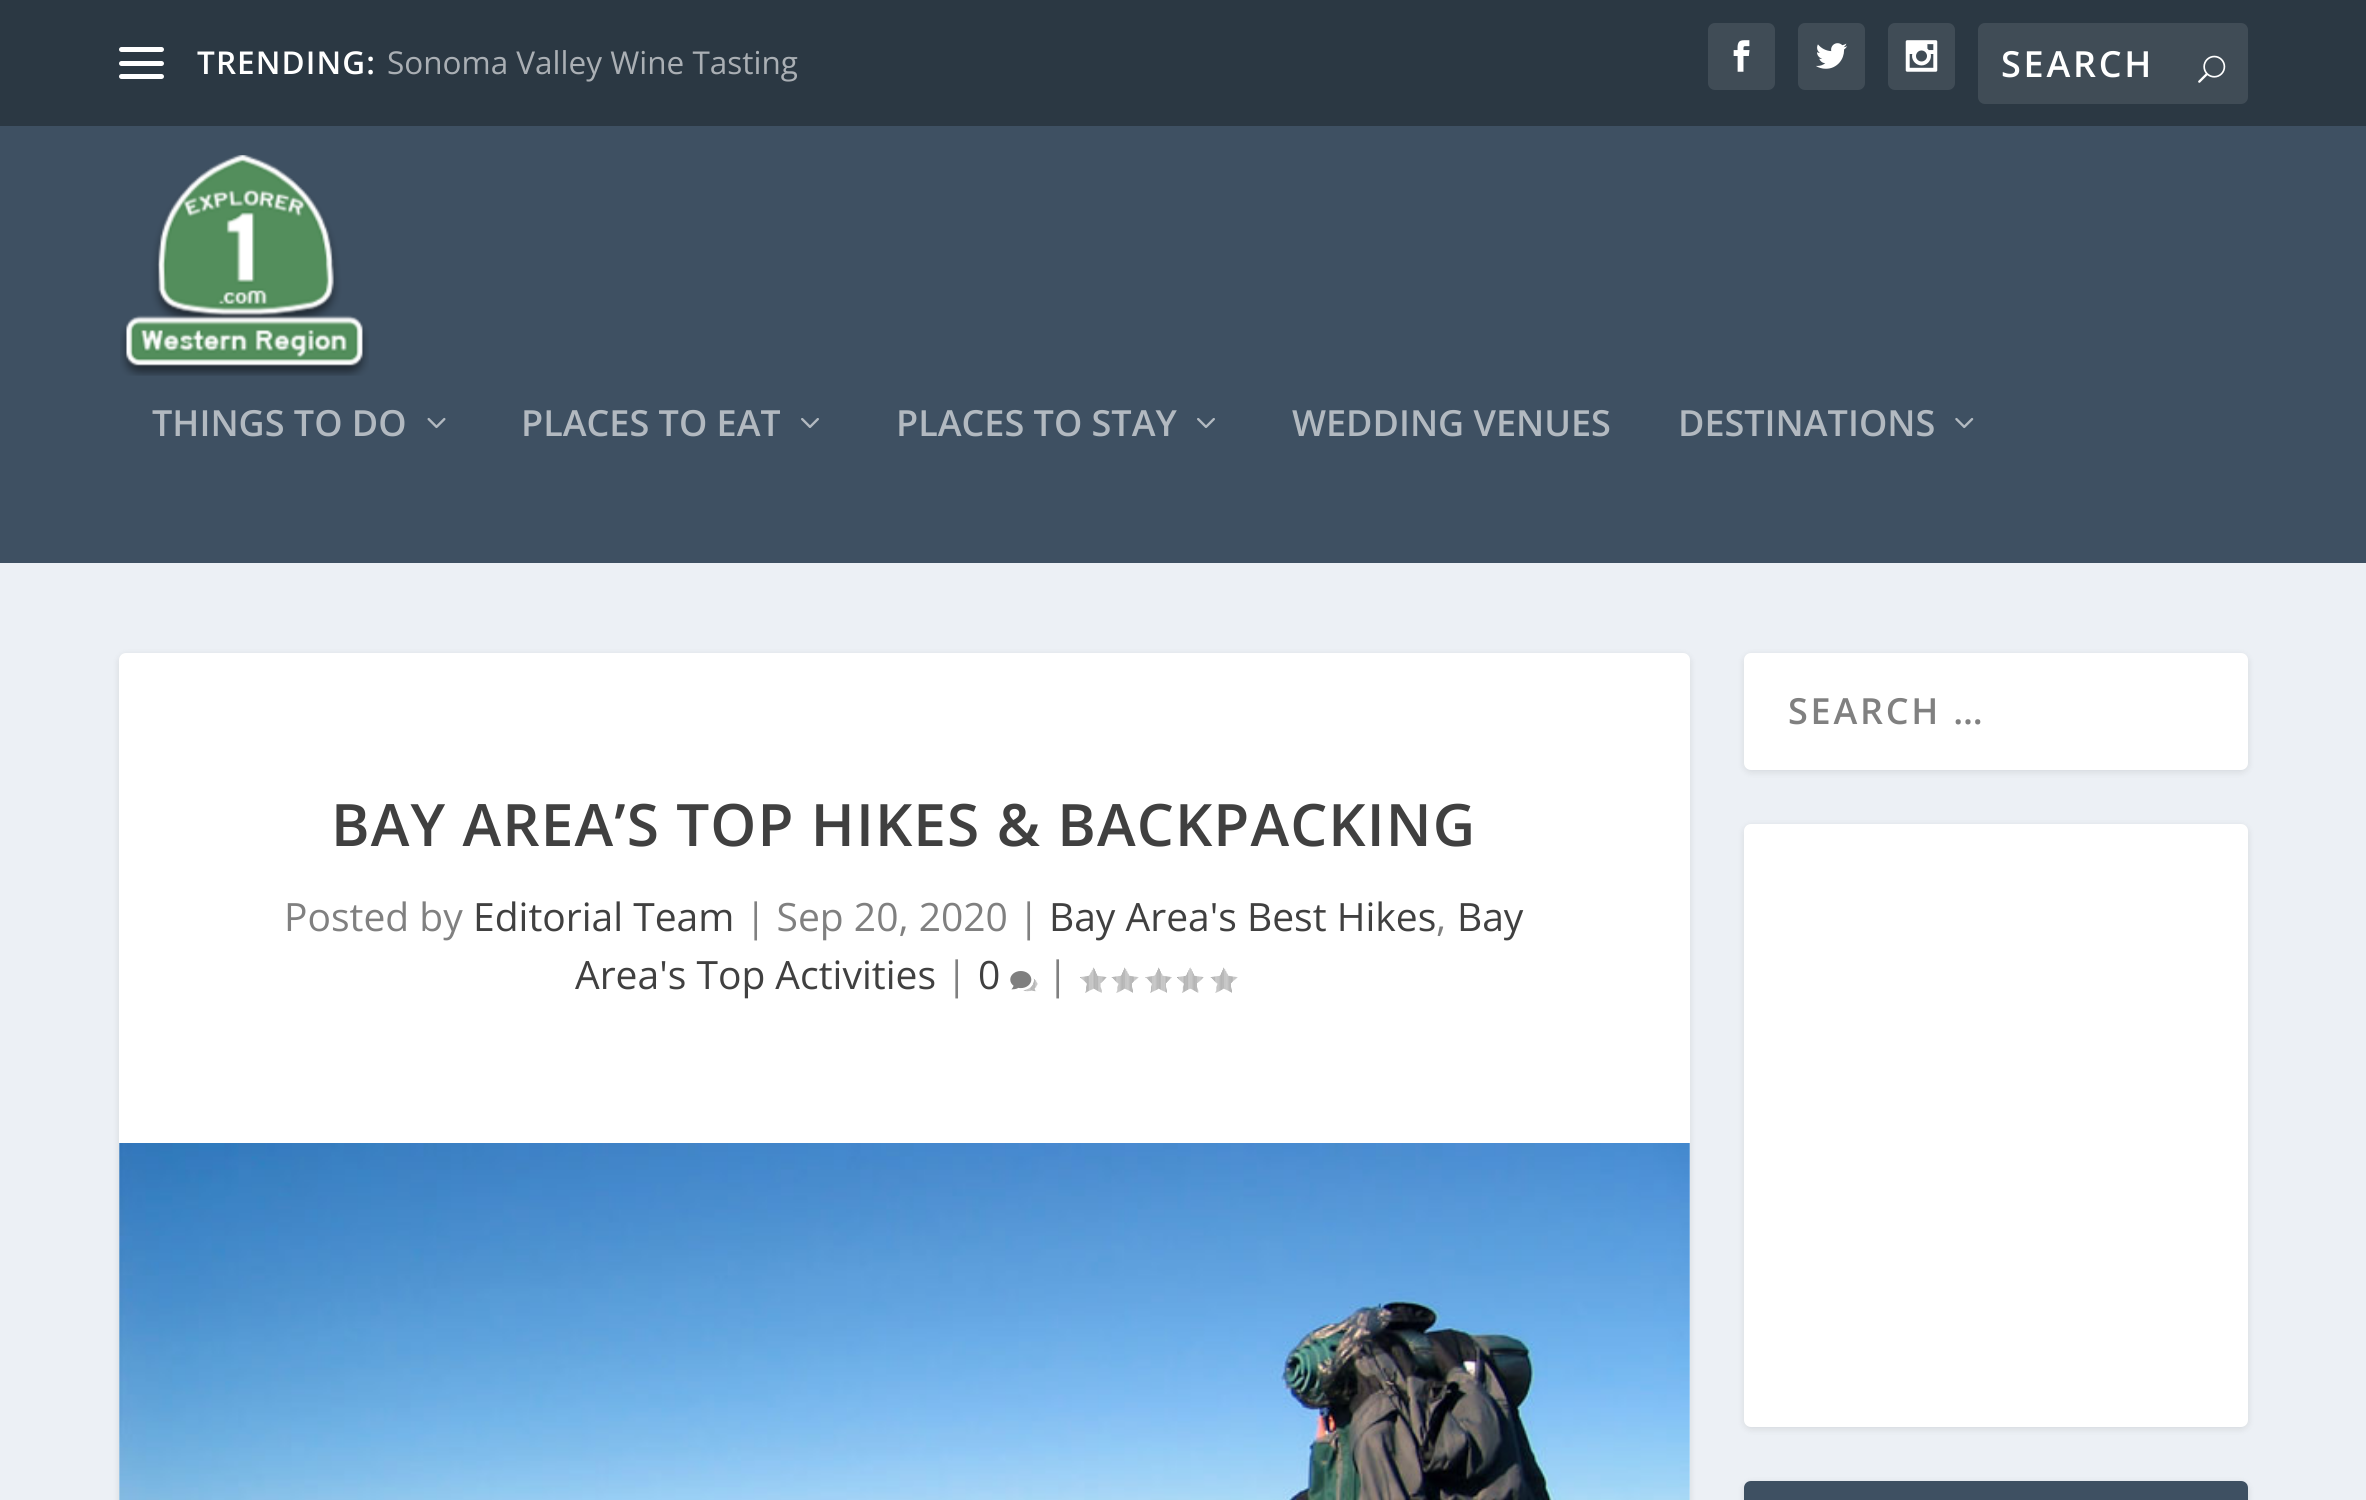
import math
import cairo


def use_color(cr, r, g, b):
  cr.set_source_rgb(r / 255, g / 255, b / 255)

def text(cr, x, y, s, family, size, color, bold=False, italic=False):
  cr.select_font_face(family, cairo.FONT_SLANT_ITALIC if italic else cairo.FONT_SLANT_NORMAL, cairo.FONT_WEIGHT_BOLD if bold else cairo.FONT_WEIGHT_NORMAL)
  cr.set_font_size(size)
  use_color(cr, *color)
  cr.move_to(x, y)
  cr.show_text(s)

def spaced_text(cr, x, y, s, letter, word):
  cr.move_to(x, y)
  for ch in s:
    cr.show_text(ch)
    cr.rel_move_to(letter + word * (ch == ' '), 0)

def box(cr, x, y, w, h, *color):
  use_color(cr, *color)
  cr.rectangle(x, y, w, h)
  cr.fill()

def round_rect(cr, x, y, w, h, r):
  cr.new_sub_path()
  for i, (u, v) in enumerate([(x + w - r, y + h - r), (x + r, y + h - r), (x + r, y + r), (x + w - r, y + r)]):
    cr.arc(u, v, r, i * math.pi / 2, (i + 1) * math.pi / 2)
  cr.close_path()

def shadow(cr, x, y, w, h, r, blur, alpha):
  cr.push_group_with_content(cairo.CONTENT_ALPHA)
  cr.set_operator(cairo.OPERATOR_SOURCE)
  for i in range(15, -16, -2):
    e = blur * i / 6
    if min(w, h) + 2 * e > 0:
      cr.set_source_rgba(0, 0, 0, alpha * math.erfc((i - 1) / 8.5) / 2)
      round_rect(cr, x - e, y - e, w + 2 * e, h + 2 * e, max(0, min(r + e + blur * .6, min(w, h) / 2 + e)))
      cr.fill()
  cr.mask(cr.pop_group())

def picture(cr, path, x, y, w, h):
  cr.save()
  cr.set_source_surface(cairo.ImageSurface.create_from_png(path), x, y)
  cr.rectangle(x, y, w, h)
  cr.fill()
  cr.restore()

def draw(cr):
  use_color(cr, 236, 240, 245)
  cr.paint()
  box(cr, 0, 0, 2366, 126, 43, 56, 67)
  use_color(cr, 255, 255, 255)
  round_rect(cr, 119, 47, 45, 5, 2.5)
  cr.fill()
  round_rect(cr, 119, 61, 45, 5, 2.5)
  cr.fill()
  round_rect(cr, 119, 74, 45, 5, 2.5)
  cr.fill()
  use_color(cr, 64, 76, 86)
  round_rect(cr, 1708, 23, 67, 67, 7)
  cr.fill()
  picture(cr, "img_01.png", 1733, 40, 17, 32)
  round_rect(cr, 1798, 23, 67, 67, 7)
  cr.fill()
  picture(cr, "img_02.png", 1816, 43, 32, 26)
  round_rect(cr, 1888, 23, 67, 67, 7)
  cr.fill()
  picture(cr, "img_03.png", 1905, 40, 33, 32)
  round_rect(cr, 1978, 23, 270, 81, 7)
  cr.fill()
  picture(cr, "img_04.png", 2198, 55, 28, 28)
  box(cr, 0, 126, 2366, 437, 62, 80, 98)
  picture(cr, "img_05.png", 120, 155, 249, 221)
  picture(cr, "img_06.png", 427, 417, 19, 12)
  picture(cr, "img_07.png", 801, 418, 18, 10)
  picture(cr, "img_07.png", 1197, 418, 18, 10)
  picture(cr, "img_08.png", 1955, 417, 19, 12)
  use_color(cr, 0, 0, 0)
  shadow(cr, 1744, 655, 504, 117, 7, 3.5, 0.1)
  use_color(cr, 255, 255, 255)
  round_rect(cr, 1744, 653, 504, 117, 7)
  cr.fill()
  use_color(cr, 0, 0, 0)
  shadow(cr, 1744, 826, 504, 603, 7, 3.5, 0.1)
  use_color(cr, 255, 255, 255)
  round_rect(cr, 1744, 824, 504, 603, 7)
  cr.fill()
  use_color(cr, 0, 0, 0)
  shadow(cr, 1744, 1483, 504, 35, 7, 3.5, 0.1)
  use_color(cr, 62, 80, 98)
  cr.new_path()
  cr.move_to(1751, 1481)
  cr.line_to(2241, 1481)
  cr.curve_to(2245, 1481, 2248, 1484, 2248, 1488)
  cr.line_to(2248, 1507)
  cr.line_to(1744, 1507)
  cr.line_to(1744, 1488)
  cr.curve_to(1744, 1484, 1747, 1481, 1751, 1481)
  cr.close_path()
  cr.fill()
  use_color(cr, 0, 0, 0)
  shadow(cr, 119, 655, 1571, 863, 7, 3.5, 0.1)
  use_color(cr, 255, 255, 255)
  round_rect(cr, 119, 653, 1571, 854, 7)
  cr.fill()
  picture(cr, "img_09.png", 1010, 971, 28, 21)
  picture(cr, "img_10.png", 1080, 967, 27, 26)
  picture(cr, "img_11.png", 1111, 967, 28, 26)
  picture(cr, "img_12.png", 1145, 967, 27, 26)
  picture(cr, "img_13.png", 1177, 967, 27, 26)
  picture(cr, "img_11.png", 1210, 967, 28, 26)
  picture(cr, "img_14.png", 119, 1143, 1571, 357)
  cr.select_font_face("Open Sans SemiBold")
  cr.set_font_size(31.5)
  spaced_text(cr, 197, 74, "TRENDING:", 1.1, 0)
  text(cr, 387, 74, "Sonoma Valley Wine Tasting", "Open Sans", 31.5, (170, 175, 180))
  cr.select_font_face("Open Sans SemiBold")
  cr.set_font_size(36)
  use_color(cr, 255, 255, 255)
  spaced_text(cr, 2001, 77, "SEARCH", 2.75, 0)
  text(cr, 152, 436, "THINGS TO DO", "Open Sans SemiBold", 36, (178, 185, 192))
  text(cr, 521, 436, "PLACES TO EAT", "Open Sans SemiBold", 36, (178, 185, 192))
  text(cr, 896, 436, "PLACES TO STAY", "Open Sans SemiBold", 36, (178, 185, 192))
  text(cr, 1292, 436, "WEDDING VENUES", "Open Sans SemiBold", 36, (178, 185, 192))
  text(cr, 1678, 436, "DESTINATIONS", "Open Sans SemiBold", 36, (178, 185, 192))
  use_color(cr, 128, 128, 128)
  spaced_text(cr, 1788, 724, "SEARCH …", 2.75, 0)
  cr.set_font_size(58.5)
  use_color(cr, 64, 64, 64)
  spaced_text(cr, 331, 846, "BAY AREA’S TOP HIKES & BACKPACKING", 1.1, 0)
  text(cr, 284, 931, "Posted by", "Open Sans", 39, (128, 128, 128))
  text(cr, 473, 931, "Editorial Team", "Open Sans", 39, (64, 64, 64))
  text(cr, 745, 931, "| Sep 20, 2020 |", "Open Sans", 39, (128, 128, 128))
  text(cr, 1049, 931, "Bay Area's Best Hikes", "Open Sans", 39, (64, 64, 64))
  text(cr, 1436, 931, ",", "Open Sans", 39, (128, 128, 128))
  text(cr, 1457, 931, "Bay", "Open Sans", 39, (64, 64, 64))
  text(cr, 575, 989, "Area's Top Activities", "Open Sans", 39, (64, 64, 64))
  text(cr, 946, 989, "|", "Open Sans", 39, (128, 128, 128))
  text(cr, 978, 989, "0", "Open Sans", 39, (64, 64, 64))
  text(cr, 1047, 989, "|", "Open Sans", 39, (128, 128, 128))


surface = cairo.ImageSurface(cairo.FORMAT_RGB24, 2366, 1500)
cr = cairo.Context(surface)
options = cairo.FontOptions()
options.set_hint_metrics(cairo.HINT_METRICS_OFF)
options.set_hint_style(cairo.HINT_STYLE_NONE)
cr.set_font_options(options)
cr.set_miter_limit(4)
draw(cr)
surface.write_to_png("out.png")
